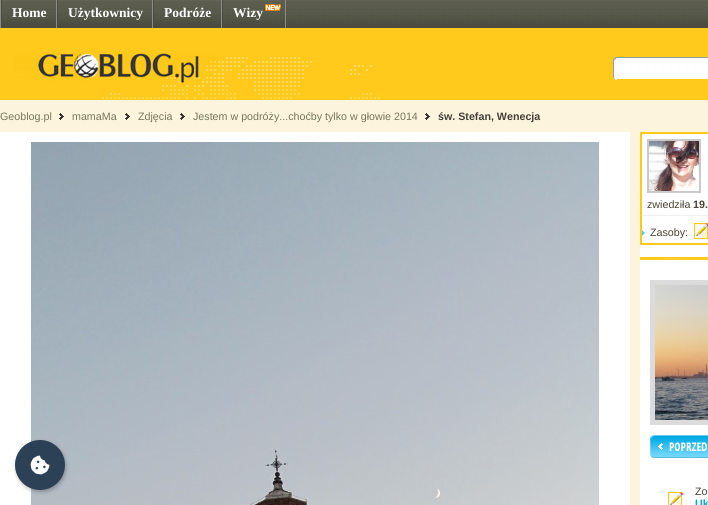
import math
import cairo


def use_color(cr, r, g, b):
  cr.set_source_rgb(r / 255, g / 255, b / 255)

def text(cr, x, y, s, family, size, color, bold=False, italic=False):
  cr.select_font_face(family, cairo.FONT_SLANT_ITALIC if italic else cairo.FONT_SLANT_NORMAL, cairo.FONT_WEIGHT_BOLD if bold else cairo.FONT_WEIGHT_NORMAL)
  cr.set_font_size(size)
  use_color(cr, *color)
  cr.move_to(x, y)
  cr.show_text(s)

def box(cr, x, y, w, h, *color):
  use_color(cr, *color)
  cr.rectangle(x, y, w, h)
  cr.fill()

def round_rect(cr, x, y, w, h, r):
  cr.new_sub_path()
  for i, (u, v) in enumerate([(x + w - r, y + h - r), (x + r, y + h - r), (x + r, y + r), (x + w - r, y + r)]):
    cr.arc(u, v, r, i * math.pi / 2, (i + 1) * math.pi / 2)
  cr.close_path()

def shadow(cr, x, y, w, h, r, blur, alpha):
  cr.push_group_with_content(cairo.CONTENT_ALPHA)
  cr.set_operator(cairo.OPERATOR_SOURCE)
  for i in range(15, -16, -2):
    e = blur * i / 6
    if min(w, h) + 2 * e > 0:
      cr.set_source_rgba(0, 0, 0, alpha * math.erfc((i - 1) / 8.5) / 2)
      round_rect(cr, x - e, y - e, w + 2 * e, h + 2 * e, max(0, min(r + e + blur * .6, min(w, h) / 2 + e)))
      cr.fill()
  cr.mask(cr.pop_group())

def picture(cr, path, x, y, w, h):
  cr.save()
  cr.set_source_surface(cairo.ImageSurface.create_from_png(path), x, y)
  cr.rectangle(x, y, w, h)
  cr.fill()
  cr.restore()

def draw(cr):
  use_color(cr, 252, 244, 221)
  cr.paint()
  picture(cr, "img_01.png", 2, 0, 706, 28)
  box(cr, 0, 0, 1, 28, 140, 141, 131)
  box(cr, 56, 0, 1, 28, 140, 141, 131)
  box(cr, 1, 0, 1, 28, 73, 74, 65)
  box(cr, 152, 0, 1, 28, 140, 141, 131)
  box(cr, 57, 0, 1, 28, 73, 74, 65)
  box(cr, 221, 0, 1, 28, 140, 141, 131)
  box(cr, 153, 0, 1, 28, 73, 74, 65)
  box(cr, 285, 0, 1, 28, 140, 141, 131)
  box(cr, 222, 0, 1, 28, 73, 74, 65)
  picture(cr, "img_02.png", 265, 4, 16, 7)
  box(cr, 0, 28, 708, 72, 255, 202, 28)
  picture(cr, "img_03.png", 0, 52, 380, 48)
  picture(cr, "img_04.png", 613, 56, 4, 25)
  box(cr, 617, 78, 91, 1, 255, 255, 255)
  picture(cr, "img_05.png", 617, 56, 91, 22)
  picture(cr, "img_06.png", 59, 113, 5, 7)
  picture(cr, "img_06.png", 125, 113, 5, 7)
  picture(cr, "img_06.png", 180, 113, 5, 7)
  picture(cr, "img_06.png", 425, 113, 5, 7)
  box(cr, 0, 132, 630, 373, 255, 255, 255)
  picture(cr, "img_07.png", 31, 142, 568, 363)
  box(cr, 640, 134, 68, 371, 255, 255, 255)
  cr.rectangle(641, 133, 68, 111)
  use_color(cr, 255, 202, 28)
  cr.stroke()
  box(cr, 642, 215, 66, 1, 240, 240, 240)
  cr.rectangle(648, 140, 52, 52)
  use_color(cr, 202, 202, 202)
  cr.stroke()
  picture(cr, "img_08.png", 649, 141, 50, 50)
  picture(cr, "img_09.png", 642, 230, 3, 6)
  picture(cr, "img_10.png", 694, 223, 14, 16)
  picture(cr, "img_11.png", 640, 257, 68, 3)
  cr.rectangle(652.5, 282.5, 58, 140)
  use_color(cr, 219, 219, 219)
  cr.set_line_width(5)
  cr.stroke()
  picture(cr, "img_12.png", 655, 285, 53, 135)
  picture(cr, "img_13.png", 650, 435, 58, 23)
  picture(cr, "img_14.png", 668, 492, 16, 13)
  use_color(cr, 0, 0, 0)
  shadow(cr, 16, 442, 50, 50, 25, 2, 0.25)
  use_color(cr, 45, 65, 86)
  cr.arc(40, 465, 25, 0, 2 * math.pi)
  cr.fill()
  picture(cr, "img_15.png", 30, 455, 20, 20)
  text(cr, 12, 17, "Home", "Liberation Serif", 13.5, (255, 255, 255), bold=True)
  text(cr, 68, 17, "Użytkownicy", "Liberation Serif", 13.5, (255, 255, 255), bold=True)
  text(cr, 164, 17, "Podróże", "Liberation Serif", 13.5, (255, 255, 255), bold=True)
  text(cr, 233, 17, "Wizy", "Liberation Serif", 13.5, (255, 255, 255), bold=True)
  text(cr, 0, 120, "Geoblog.pl", "Liberation Sans", 10.7, (118, 118, 92))
  text(cr, 72, 120, "mamaMa", "Liberation Sans", 10.7, (118, 118, 92))
  text(cr, 138, 120, "Zdjęcia", "Liberation Sans", 10.7, (118, 118, 92))
  text(cr, 193, 120, "Jestem w podróży...choćby tylko w głowie 2014", "Liberation Sans", 10.7, (118, 118, 92))
  text(cr, 438, 120, "św. Stefan, Wenecja", "Liberation Sans", 10.7, (68, 63, 57), bold=True)
  text(cr, 647, 208, "zwiedziła", "Liberation Sans", 10.7, (75, 66, 51))
  text(cr, 693, 208, "19.", "Liberation Sans", 10.7, (75, 66, 51), bold=True)
  text(cr, 650, 236, "Zasoby:", "Liberation Sans", 10.7, (75, 66, 51))
  text(cr, 695, 495, "Zo", "Liberation Sans", 10.7, (75, 66, 51))
  text(cr, 695, 507, "Uk", "Liberation Sans", 10.7, (11, 167, 216), bold=True)


surface = cairo.ImageSurface(cairo.FORMAT_RGB24, 708, 505)
cr = cairo.Context(surface)
options = cairo.FontOptions()
options.set_hint_metrics(cairo.HINT_METRICS_OFF)
options.set_hint_style(cairo.HINT_STYLE_NONE)
cr.set_font_options(options)
cr.set_miter_limit(4)
draw(cr)
surface.write_to_png("out.png")
